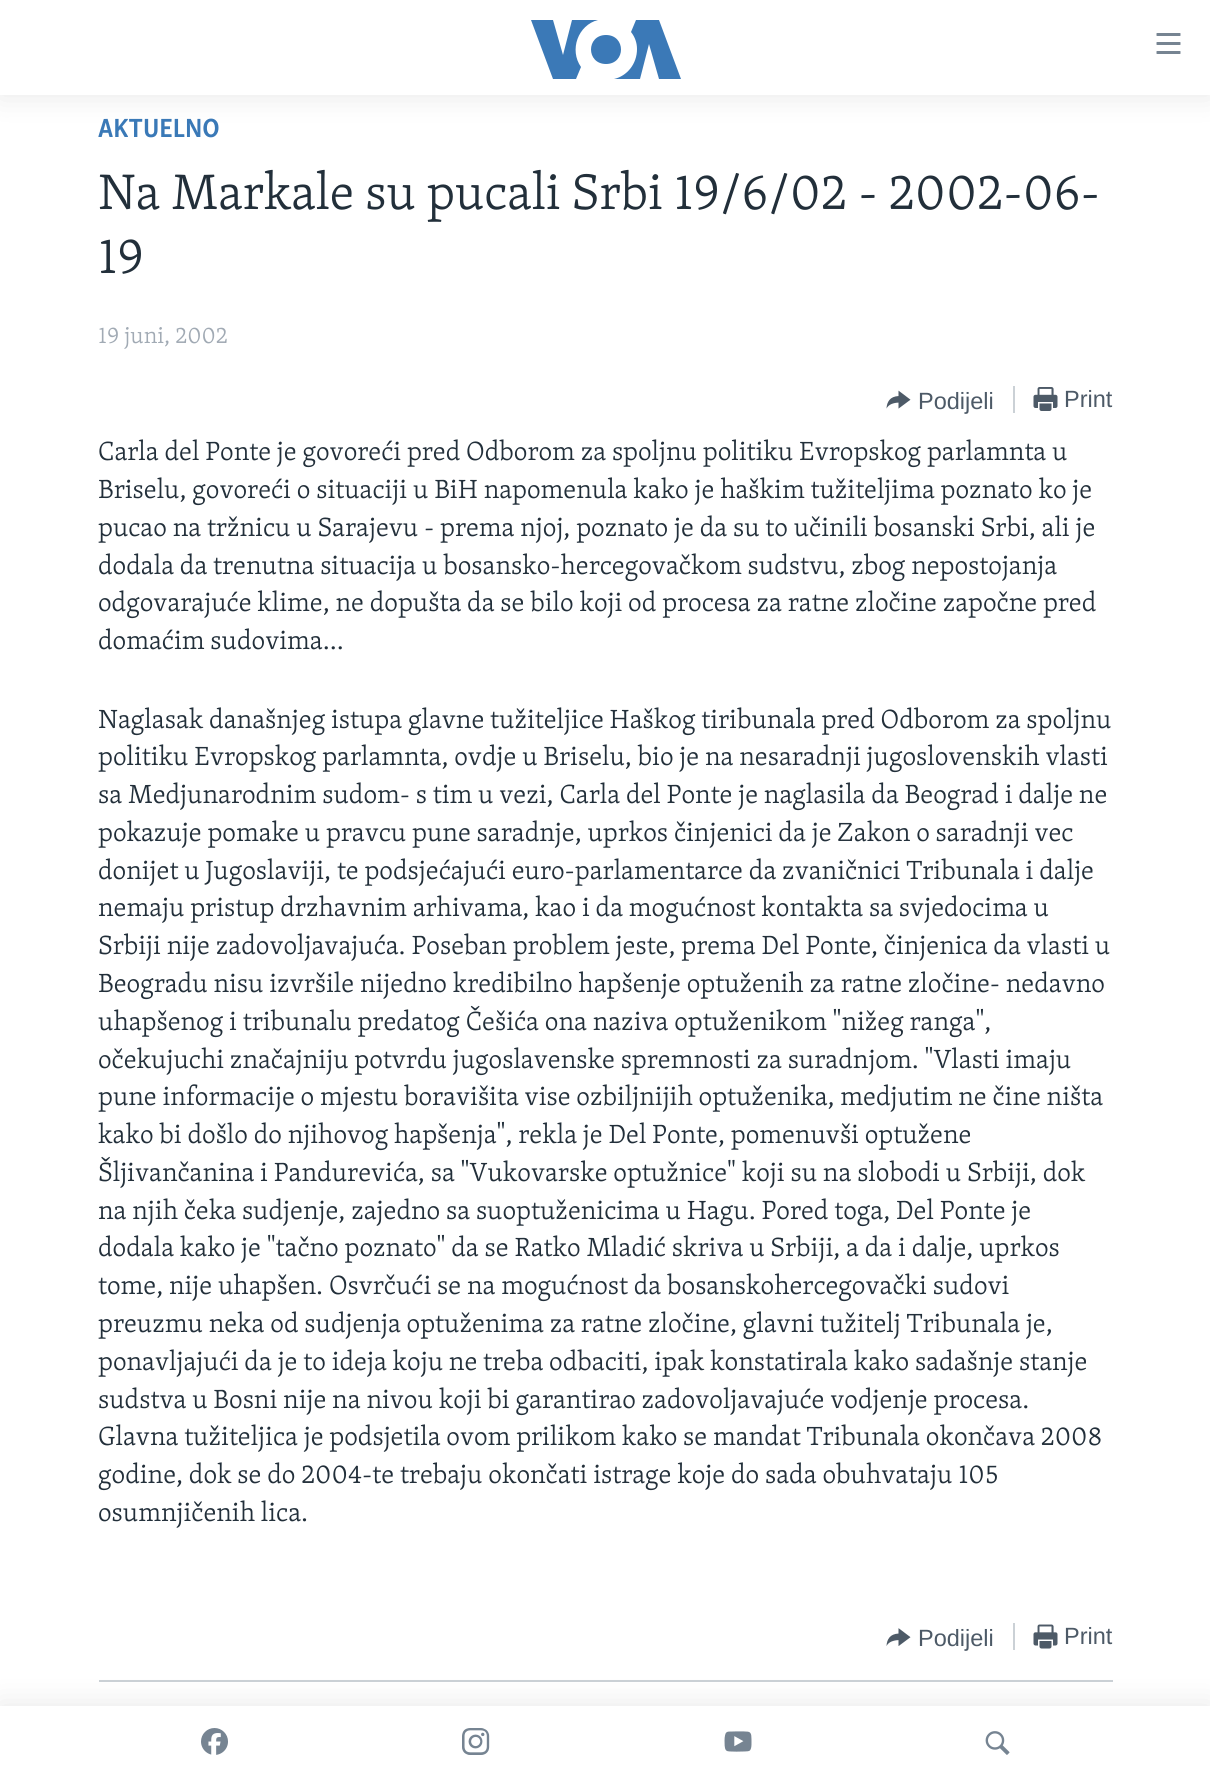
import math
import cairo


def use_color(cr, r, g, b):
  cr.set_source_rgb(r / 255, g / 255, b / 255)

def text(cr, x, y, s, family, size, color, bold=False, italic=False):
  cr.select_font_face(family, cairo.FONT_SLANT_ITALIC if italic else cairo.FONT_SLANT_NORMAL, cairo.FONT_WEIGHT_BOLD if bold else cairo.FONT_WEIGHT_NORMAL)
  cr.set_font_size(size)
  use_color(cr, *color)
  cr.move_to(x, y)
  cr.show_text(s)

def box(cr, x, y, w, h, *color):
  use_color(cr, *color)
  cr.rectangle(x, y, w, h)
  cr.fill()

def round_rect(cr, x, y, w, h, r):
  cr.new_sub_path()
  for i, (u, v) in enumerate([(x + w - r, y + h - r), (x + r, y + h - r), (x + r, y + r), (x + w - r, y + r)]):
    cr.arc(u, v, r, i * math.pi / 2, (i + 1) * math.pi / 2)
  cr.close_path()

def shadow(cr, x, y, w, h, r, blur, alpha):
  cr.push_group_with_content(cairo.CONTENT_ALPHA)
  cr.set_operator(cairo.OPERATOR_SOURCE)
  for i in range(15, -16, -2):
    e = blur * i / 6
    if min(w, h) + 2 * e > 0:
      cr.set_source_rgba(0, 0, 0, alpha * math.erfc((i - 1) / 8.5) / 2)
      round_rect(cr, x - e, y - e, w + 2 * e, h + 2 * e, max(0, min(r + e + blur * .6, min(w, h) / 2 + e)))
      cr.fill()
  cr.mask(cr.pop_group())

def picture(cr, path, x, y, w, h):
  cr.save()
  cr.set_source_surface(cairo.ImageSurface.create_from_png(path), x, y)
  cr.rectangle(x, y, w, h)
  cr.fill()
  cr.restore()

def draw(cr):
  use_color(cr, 255, 255, 255)
  cr.paint()
  use_color(cr, 0, 0, 0)
  shadow(cr, 0, 0, 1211, 95, 0, 15, 0.1)
  box(cr, 0, 0, 1210, 95, 255, 255, 255)
  use_color(cr, 59, 121, 183)
  cr.new_path()
  cr.move_to(581, 67)
  cr.line_to(576, 79)
  cr.line_to(553, 79)
  cr.line_to(531, 20)
  cr.line_to(553, 20)
  cr.line_to(563, 55)
  cr.line_to(572, 20)
  cr.line_to(598, 20)
  cr.curve_to(578, 25, 569, 50, 581, 67)
  cr.close_path()
  cr.move_to(606, 35)
  cr.curve_to(586, 35, 586, 64, 606, 64)
  cr.curve_to(626, 64, 626, 35, 606, 35)
  cr.close_path()
  cr.move_to(637, 49)
  cr.curve_to(637, 64, 627, 76, 614, 79)
  cr.line_to(640, 79)
  cr.line_to(649, 44)
  cr.line_to(659, 79)
  cr.line_to(681, 79)
  cr.line_to(659, 20)
  cr.line_to(636, 20)
  cr.line_to(631, 32)
  cr.curve_to(635, 37, 637, 43, 637, 49)
  cr.close_path()
  cr.fill()
  picture(cr, "img_01.png", 1156, 33, 25, 21)
  box(cr, 99, 1680, 1014, 2, 203, 209, 214)
  use_color(cr, 0, 0, 0)
  shadow(cr, 0, 1706, 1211, 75, 0, 15, 0.1)
  box(cr, 0, 1706, 1210, 74, 255, 255, 255)
  picture(cr, "img_02.png", 201, 1728, 27, 27)
  picture(cr, "img_03.png", 462, 1728, 28, 27)
  picture(cr, "img_04.png", 724, 1731, 28, 21)
  picture(cr, "img_05.png", 985, 1731, 25, 24)
  picture(cr, "img_06.png", 886, 390, 25, 19)
  box(cr, 1013, 386, 2, 27, 203, 209, 214)
  picture(cr, "img_07.png", 1033, 387, 25, 24)
  picture(cr, "img_08.png", 886, 1628, 25, 18)
  box(cr, 1013, 1623, 2, 27, 203, 209, 214)
  picture(cr, "img_09.png", 1033, 1624, 25, 25)
  text(cr, 98, 137, "AKTUELNO", "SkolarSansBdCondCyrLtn", 27, (58, 121, 183), bold=True)
  text(cr, 98, 209, "Na Markale su pucali Srbi 19/6/02 - 2002-06-", "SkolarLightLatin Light", 51.25, (34, 47, 58))
  text(cr, 98, 273, "19", "SkolarLightLatin Light", 51.25, (34, 47, 58))
  text(cr, 98, 343, "19 juni, 2002", "SkolarLightLatin Light", 23.5, (161, 170, 180))
  text(cr, 918, 409, "Podijeli", "Liberation Sans", 23.5, (77, 90, 103))
  text(cr, 1064, 407, "Print", "Liberation Sans", 23.5, (77, 90, 103))
  text(cr, 98, 460, "Carla del Ponte je govoreći pred Odborom za spoljnu politiku Evropskog parlamnta u", "SkolarLightLatin Light", 27, (34, 47, 58))
  text(cr, 98, 498, "Briselu, govoreći o situaciji u BiH napomenula kako je haškim tužiteljima poznato ko je", "SkolarLightLatin Light", 27, (34, 47, 58))
  text(cr, 98, 536, "pucao na tržnicu u Sarajevu - prema njoj, poznato je da su to učinili bosanski Srbi, ali je", "SkolarLightLatin Light", 27, (34, 47, 58))
  text(cr, 98, 574, "dodala da trenutna situacija u bosansko-hercegovačkom sudstvu, zbog nepostojanja", "SkolarLightLatin Light", 27, (34, 47, 58))
  text(cr, 98, 611, "odgovarajuće klime, ne dopušta da se bilo koji od procesa za ratne zločine započne pred", "SkolarLightLatin Light", 27, (34, 47, 58))
  text(cr, 98, 649, "domaćim sudovima...", "SkolarLightLatin Light", 27, (34, 47, 58))
  text(cr, 98, 728, "Naglasak današnjeg istupa glavne tužiteljice Haškog tiribunala pred Odborom za spoljnu", "SkolarLightLatin Light", 27, (34, 47, 58))
  text(cr, 98, 765, "politiku Evropskog parlamnta, ovdje u Briselu, bio je na nesaradnji jugoslovenskih vlasti", "SkolarLightLatin Light", 27, (34, 47, 58))
  text(cr, 98, 803, "sa Medjunarodnim sudom- s tim u vezi, Carla del Ponte je naglasila da Beograd i dalje ne", "SkolarLightLatin Light", 27, (34, 47, 58))
  text(cr, 98, 841, "pokazuje pomake u pravcu pune saradnje, uprkos činjenici da je Zakon o saradnji vec", "SkolarLightLatin Light", 27, (34, 47, 58))
  text(cr, 98, 879, "donijet u Jugoslaviji, te podsjećajući euro-parlamentarce da zvaničnici Tribunala i dalje", "SkolarLightLatin Light", 27, (34, 47, 58))
  text(cr, 98, 916, "nemaju pristup drzhavnim arhivama, kao i da mogućnost kontakta sa svjedocima u", "SkolarLightLatin Light", 27, (34, 47, 58))
  text(cr, 98, 954, "Srbiji nije zadovoljavajuća. Poseban problem jeste, prema Del Ponte, činjenica da vlasti u", "SkolarLightLatin Light", 27, (34, 47, 58))
  text(cr, 98, 992, "Beogradu nisu izvršile nijedno kredibilno hapšenje optuženih za ratne zločine- nedavno", "SkolarLightLatin Light", 27, (34, 47, 58))
  text(cr, 98, 1030, "uhapšenog i tribunalu predatog Češića ona naziva optuženikom \"nižeg ranga\",", "SkolarLightLatin Light", 27, (34, 47, 58))
  text(cr, 98, 1068, "očekujuchi značajniju potvrdu jugoslavenske spremnosti za suradnjom. \"Vlasti imaju", "SkolarLightLatin Light", 27, (34, 47, 58))
  text(cr, 98, 1105, "pune informacije o mjestu boravišita vise ozbiljnijih optuženika, medjutim ne čine ništa", "SkolarLightLatin Light", 27, (34, 47, 58))
  text(cr, 98, 1143, "kako bi došlo do njihovog hapšenja\", rekla je Del Ponte, pomenuvši optužene", "SkolarLightLatin Light", 27, (34, 47, 58))
  text(cr, 98, 1181, "Šljivančanina i Pandurevića, sa \"Vukovarske optužnice\" koji su na slobodi u Srbiji, dok", "SkolarLightLatin Light", 27, (34, 47, 58))
  text(cr, 98, 1219, "na njih čeka sudjenje, zajedno sa suoptuženicima u Hagu. Pored toga, Del Ponte je", "SkolarLightLatin Light", 27, (34, 47, 58))
  text(cr, 98, 1256, "dodala kako je \"tačno poznato\" da se Ratko Mladić skriva u Srbiji, a da i dalje, uprkos", "SkolarLightLatin Light", 27, (34, 47, 58))
  text(cr, 98, 1294, "tome, nije uhapšen. Osvrčući se na mogućnost da bosanskohercegovački sudovi", "SkolarLightLatin Light", 27, (34, 47, 58))
  text(cr, 98, 1332, "preuzmu neka od sudjenja optuženima za ratne zločine, glavni tužitelj Tribunala je,", "SkolarLightLatin Light", 27, (34, 47, 58))
  text(cr, 98, 1370, "ponavljajući da je to ideja koju ne treba odbaciti, ipak konstatirala kako sadašnje stanje", "SkolarLightLatin Light", 27, (34, 47, 58))
  text(cr, 98, 1408, "sudstva u Bosni nije na nivou koji bi garantirao zadovoljavajuće vodjenje procesa.", "SkolarLightLatin Light", 27, (34, 47, 58))
  text(cr, 98, 1445, "Glavna tužiteljica je podsjetila ovom prilikom kako se mandat Tribunala okončava 2008", "SkolarLightLatin Light", 27, (34, 47, 58))
  text(cr, 98, 1483, "godine, dok se do 2004-te trebaju okončati istrage koje do sada obuhvataju 105", "SkolarLightLatin Light", 27, (34, 47, 58))
  text(cr, 98, 1521, "osumnjičenih lica.", "SkolarLightLatin Light", 27, (34, 47, 58))
  text(cr, 918, 1646, "Podijeli", "Liberation Sans", 23.5, (77, 90, 103))
  text(cr, 1064, 1644, "Print", "Liberation Sans", 23.5, (77, 90, 103))


surface = cairo.ImageSurface(cairo.FORMAT_RGB24, 1210, 1780)
cr = cairo.Context(surface)
options = cairo.FontOptions()
options.set_hint_metrics(cairo.HINT_METRICS_OFF)
options.set_hint_style(cairo.HINT_STYLE_NONE)
cr.set_font_options(options)
cr.set_miter_limit(4)
draw(cr)
surface.write_to_png("out.png")
